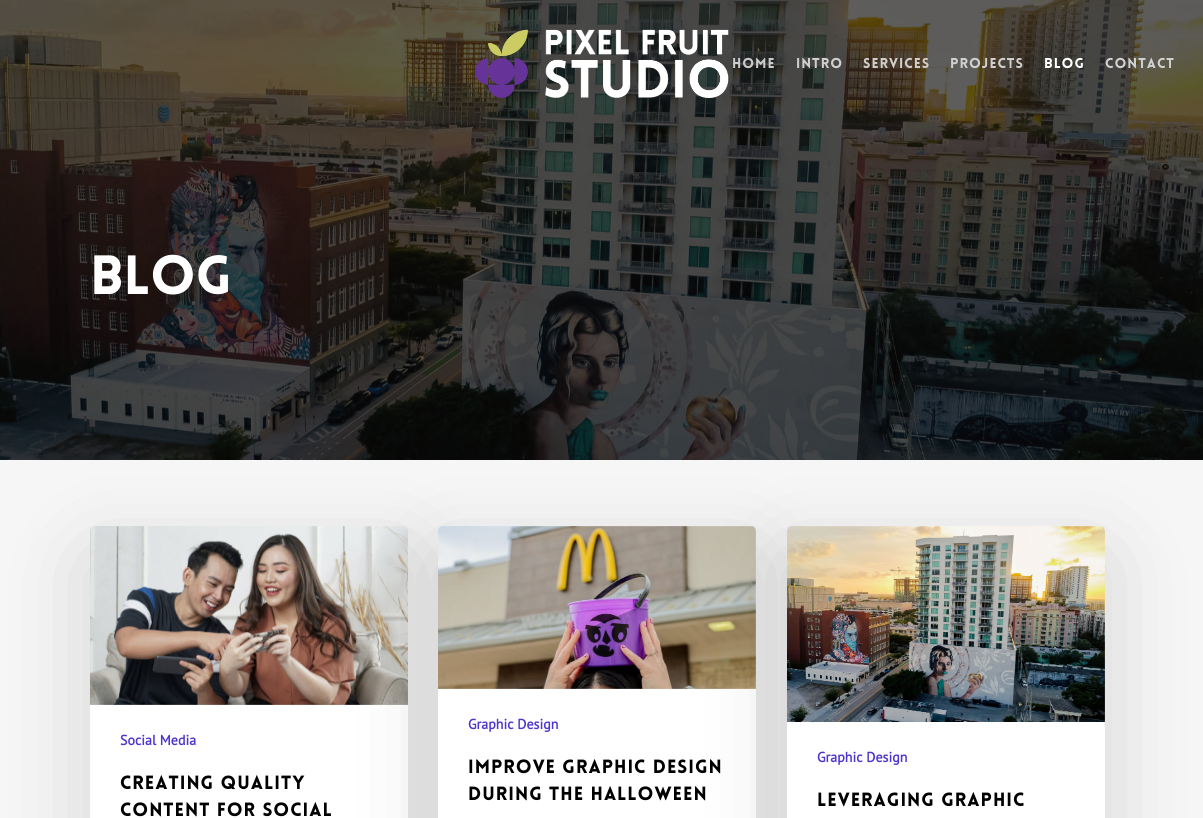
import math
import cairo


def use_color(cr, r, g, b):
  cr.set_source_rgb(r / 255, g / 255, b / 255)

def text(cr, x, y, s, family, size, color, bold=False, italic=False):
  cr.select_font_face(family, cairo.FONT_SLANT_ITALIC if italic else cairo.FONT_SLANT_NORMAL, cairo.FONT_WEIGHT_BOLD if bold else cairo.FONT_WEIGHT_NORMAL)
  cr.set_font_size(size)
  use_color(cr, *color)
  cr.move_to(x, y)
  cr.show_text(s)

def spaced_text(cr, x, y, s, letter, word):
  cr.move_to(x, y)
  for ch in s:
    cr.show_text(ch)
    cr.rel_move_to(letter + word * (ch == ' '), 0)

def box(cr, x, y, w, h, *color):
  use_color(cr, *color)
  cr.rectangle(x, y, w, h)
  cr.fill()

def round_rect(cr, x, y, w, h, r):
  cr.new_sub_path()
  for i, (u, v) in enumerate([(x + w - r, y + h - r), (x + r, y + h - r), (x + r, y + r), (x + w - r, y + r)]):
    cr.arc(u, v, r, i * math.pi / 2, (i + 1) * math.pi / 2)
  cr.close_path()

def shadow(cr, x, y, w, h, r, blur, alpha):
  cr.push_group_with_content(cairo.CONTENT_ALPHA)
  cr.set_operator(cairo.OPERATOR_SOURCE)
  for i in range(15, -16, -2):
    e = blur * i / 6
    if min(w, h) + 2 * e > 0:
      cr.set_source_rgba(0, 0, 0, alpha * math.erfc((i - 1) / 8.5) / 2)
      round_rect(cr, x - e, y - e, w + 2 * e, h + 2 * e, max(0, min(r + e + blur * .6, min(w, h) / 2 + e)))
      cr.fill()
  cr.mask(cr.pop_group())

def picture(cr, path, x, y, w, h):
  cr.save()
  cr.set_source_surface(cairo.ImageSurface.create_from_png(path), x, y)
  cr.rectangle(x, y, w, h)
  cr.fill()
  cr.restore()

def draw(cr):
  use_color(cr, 255, 255, 255)
  cr.paint()
  picture(cr, "img_02.png", 0, 0, 1203, 460)
  picture(cr, "img_01.png", 475, 29, 254, 69)
  box(cr, 0, 460, 1203, 358, 246, 246, 246)
  use_color(cr, 0, 0, 0)
  shadow(cr, 90, 556, 318, 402, 5, 45, 0.14)
  picture(cr, "img_03.png", 90, 526, 318, 179)
  box(cr, 90, 705, 318, 113, 255, 255, 255)
  use_color(cr, 0, 0, 0)
  shadow(cr, 438, 556, 318, 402, 5, 45, 0.14)
  picture(cr, "img_04.png", 438, 526, 318, 163)
  box(cr, 438, 689, 318, 129, 255, 255, 255)
  use_color(cr, 0, 0, 0)
  shadow(cr, 787, 556, 318, 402, 5, 45, 0.14)
  picture(cr, "img_05.png", 787, 526, 318, 196)
  box(cr, 787, 722, 318, 96, 255, 255, 255)
  cr.select_font_face("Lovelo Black")
  cr.set_font_size(14)
  use_color(cr, 202, 203, 202)
  spaced_text(cr, 732, 68, "Home", 1, 0)
  use_color(cr, 209, 208, 208)
  spaced_text(cr, 796, 68, "Intro", 1, 0)
  use_color(cr, 209, 206, 202)
  spaced_text(cr, 863, 68, "Services", 1, 0)
  use_color(cr, 209, 208, 208)
  spaced_text(cr, 950, 68, "Projects", 1, 0)
  use_color(cr, 255, 255, 255)
  spaced_text(cr, 1044, 68, "Blog", 1, 0)
  use_color(cr, 209, 208, 208)
  spaced_text(cr, 1105, 68, "Contact", 1, 0)
  text(cr, 90, 294, "Blog", "Lovelo Black", 54, (255, 255, 255))
  text(cr, 120, 745, "Social Media", "PT Sans", 14, (78, 54, 206), bold=True)
  cr.select_font_face("Lovelo Black")
  cr.set_font_size(18.75)
  use_color(cr, 0, 0, 0)
  spaced_text(cr, 120, 789, "Creating Quality", 1, 0)
  spaced_text(cr, 120, 816, "Content for Social", 1, 0)
  text(cr, 468, 729, "Graphic Design", "PT Sans", 14, (78, 54, 206), bold=True)
  cr.select_font_face("Lovelo Black")
  cr.set_font_size(18.75)
  use_color(cr, 0, 0, 0)
  spaced_text(cr, 468, 773, "Improve Graphic Design", 1, 0)
  spaced_text(cr, 468, 800, "During the Halloween", 1, 0)
  text(cr, 817, 762, "Graphic Design", "PT Sans", 14, (78, 54, 206), bold=True)
  cr.select_font_face("Lovelo Black")
  cr.set_font_size(18.75)
  use_color(cr, 0, 0, 0)
  spaced_text(cr, 817, 806, "Leveraging Graphic", 1, 0)


surface = cairo.ImageSurface(cairo.FORMAT_RGB24, 1203, 818)
cr = cairo.Context(surface)
options = cairo.FontOptions()
options.set_hint_metrics(cairo.HINT_METRICS_OFF)
options.set_hint_style(cairo.HINT_STYLE_NONE)
cr.set_font_options(options)
cr.set_miter_limit(4)
draw(cr)
surface.write_to_png("out.png")
